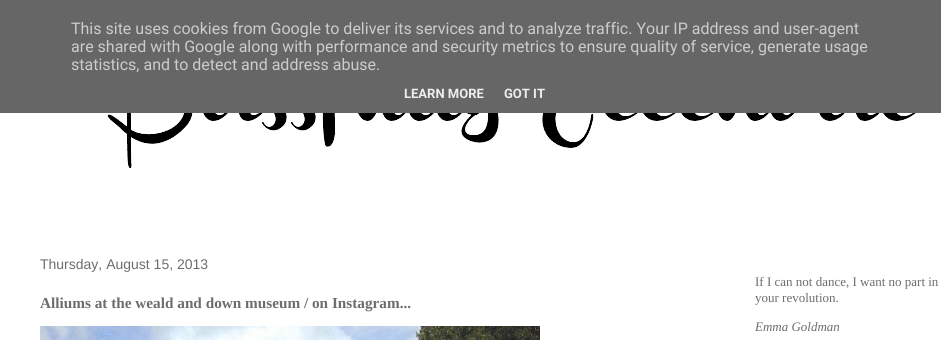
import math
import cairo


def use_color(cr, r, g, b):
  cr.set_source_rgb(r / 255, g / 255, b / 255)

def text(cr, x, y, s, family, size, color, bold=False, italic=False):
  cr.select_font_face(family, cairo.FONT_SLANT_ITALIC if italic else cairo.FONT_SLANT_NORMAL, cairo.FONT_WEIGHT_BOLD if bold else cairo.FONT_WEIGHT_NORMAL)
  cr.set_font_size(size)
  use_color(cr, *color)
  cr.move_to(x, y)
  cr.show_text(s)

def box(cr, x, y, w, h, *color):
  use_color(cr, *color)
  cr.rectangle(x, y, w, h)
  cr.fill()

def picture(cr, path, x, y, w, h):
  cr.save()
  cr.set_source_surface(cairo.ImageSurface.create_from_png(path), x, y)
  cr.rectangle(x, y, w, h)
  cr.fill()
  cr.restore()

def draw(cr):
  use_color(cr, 255, 255, 255)
  cr.paint()
  box(cr, 0, 0, 941, 113, 102, 102, 102)
  picture(cr, "img_01.png", 73, 113, 843, 56)
  picture(cr, "img_02.png", 40, 326, 500, 14)
  text(cr, 71, 34, "This site uses cookies from Google to deliver its services and to analyze traffic. Your IP address and user-agent", "Roboto", 16, (204, 204, 204))
  text(cr, 71, 52, "are shared with Google along with performance and security metrics to ensure quality of service, generate usage", "Roboto", 16, (204, 204, 204))
  text(cr, 71, 70, "statistics, and to detect and address abuse.", "Roboto", 16, (204, 204, 204))
  text(cr, 404, 98, "LEARN MORE", "Roboto", 13, (238, 238, 238), bold=True)
  text(cr, 504, 98, "GOT IT", "Roboto", 13, (238, 238, 238), bold=True)
  text(cr, 40, 269, "Thursday, August 15, 2013", "Liberation Sans", 14, (109, 109, 109))
  text(cr, 40, 308, "Alliums at the weald and down museum / on Instagram...", "Liberation Serif", 15.25, (109, 109, 109), bold=True)
  text(cr, 755, 286, "If I can not dance, I want no part in", "Liberation Serif", 13, (109, 109, 109))
  text(cr, 755, 302, "your revolution.", "Liberation Serif", 13, (109, 109, 109))
  text(cr, 755, 331, "Emma Goldman", "Liberation Serif", 13, (109, 109, 109), italic=True)


surface = cairo.ImageSurface(cairo.FORMAT_RGB24, 941, 340)
cr = cairo.Context(surface)
options = cairo.FontOptions()
options.set_hint_metrics(cairo.HINT_METRICS_OFF)
options.set_hint_style(cairo.HINT_STYLE_NONE)
cr.set_font_options(options)
cr.set_miter_limit(4)
draw(cr)
surface.write_to_png("out.png")
